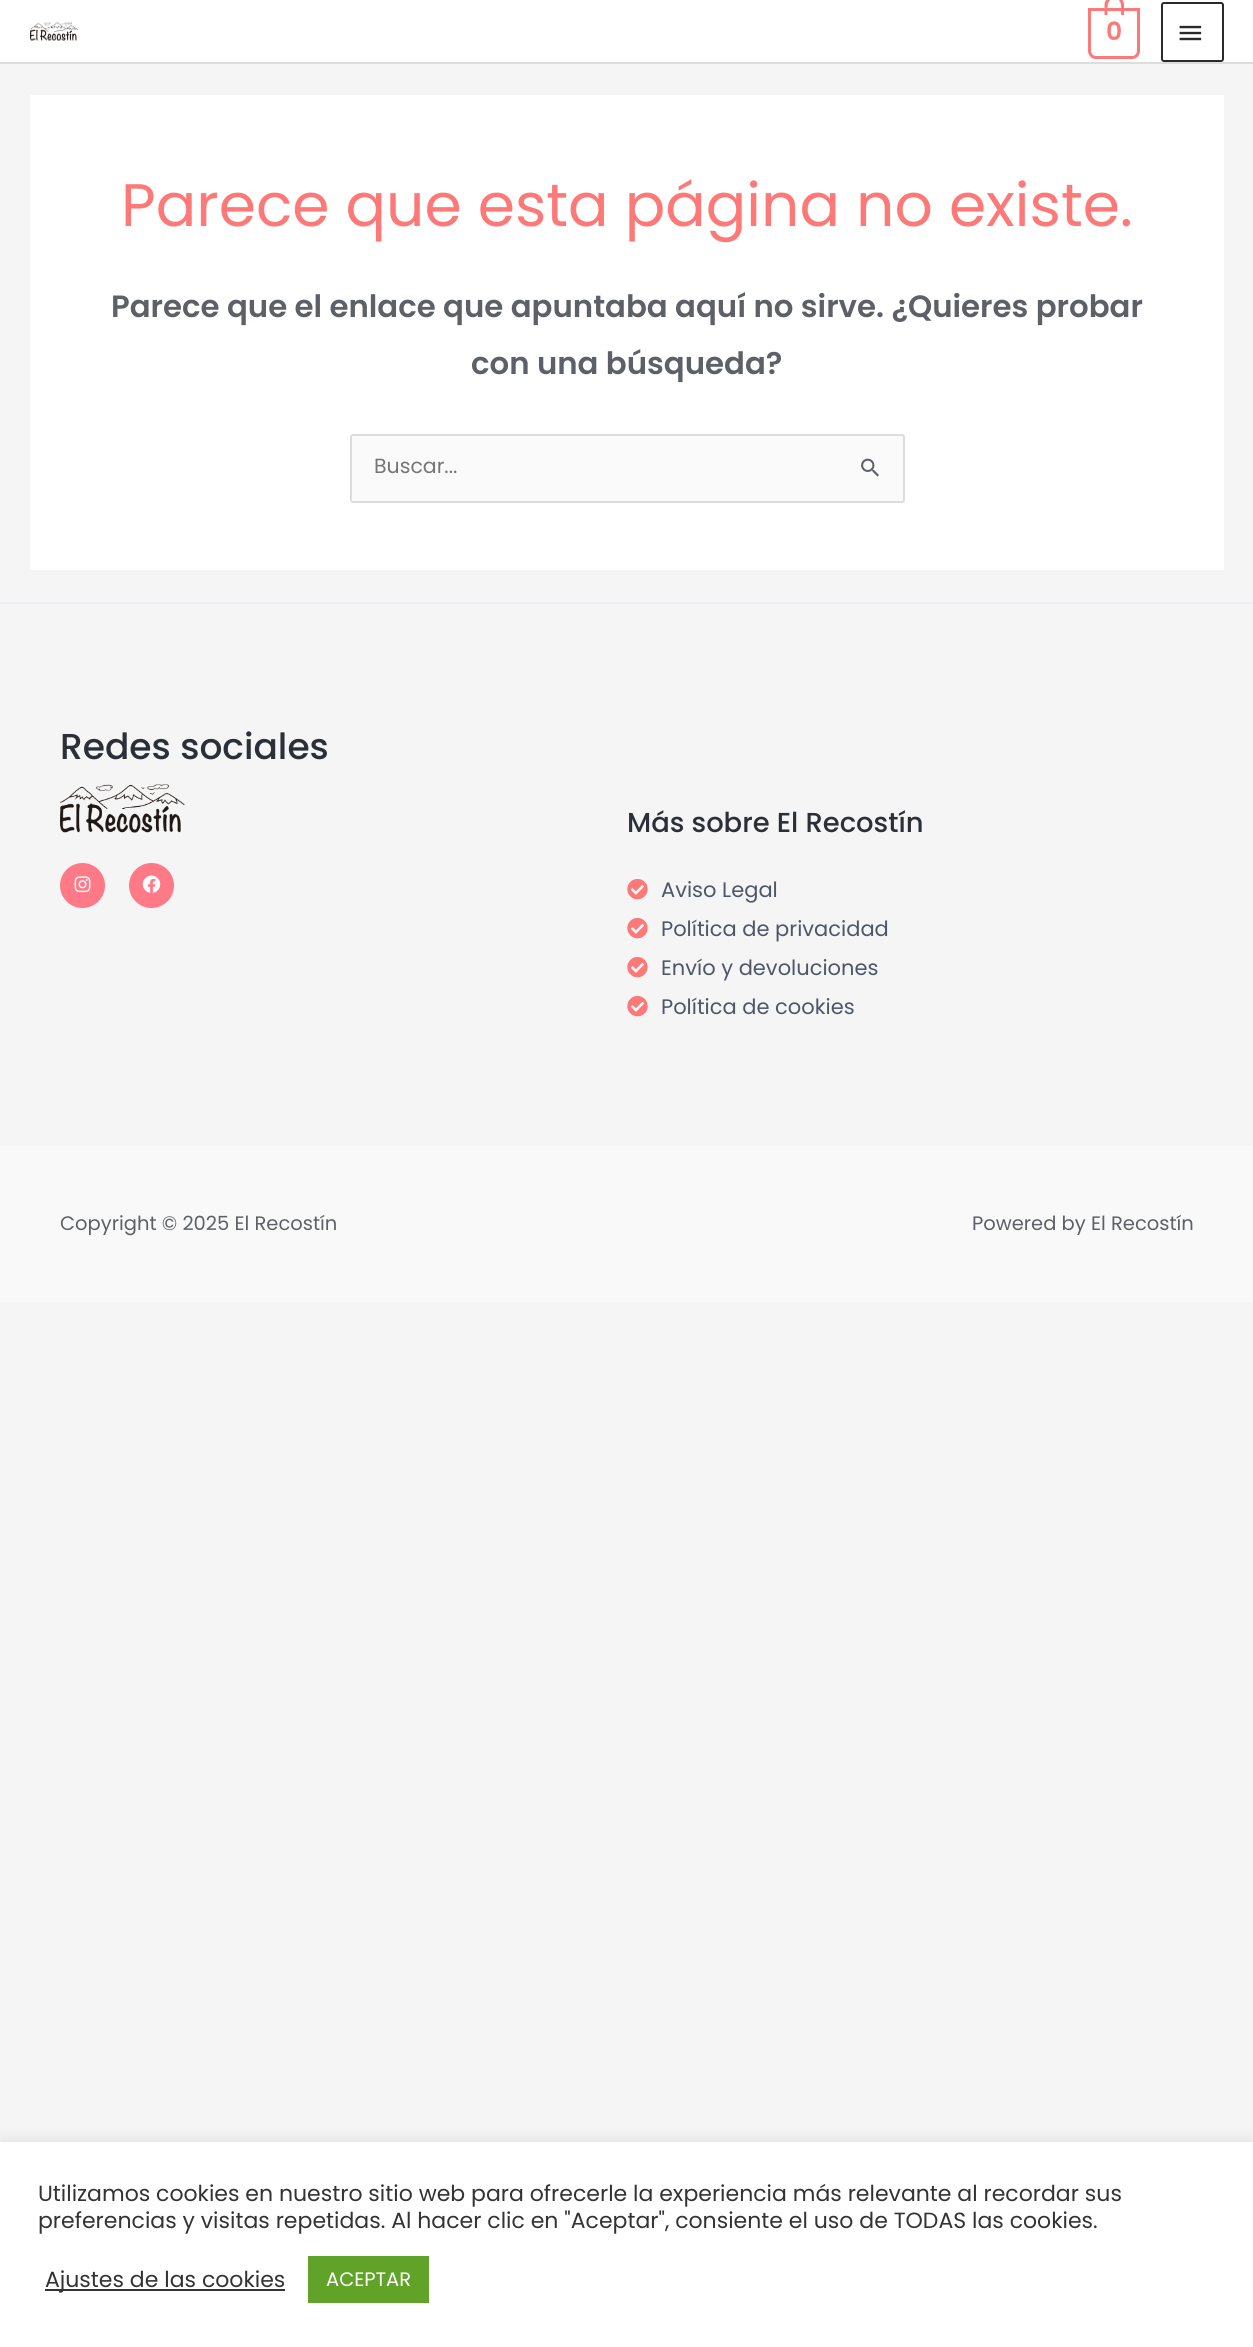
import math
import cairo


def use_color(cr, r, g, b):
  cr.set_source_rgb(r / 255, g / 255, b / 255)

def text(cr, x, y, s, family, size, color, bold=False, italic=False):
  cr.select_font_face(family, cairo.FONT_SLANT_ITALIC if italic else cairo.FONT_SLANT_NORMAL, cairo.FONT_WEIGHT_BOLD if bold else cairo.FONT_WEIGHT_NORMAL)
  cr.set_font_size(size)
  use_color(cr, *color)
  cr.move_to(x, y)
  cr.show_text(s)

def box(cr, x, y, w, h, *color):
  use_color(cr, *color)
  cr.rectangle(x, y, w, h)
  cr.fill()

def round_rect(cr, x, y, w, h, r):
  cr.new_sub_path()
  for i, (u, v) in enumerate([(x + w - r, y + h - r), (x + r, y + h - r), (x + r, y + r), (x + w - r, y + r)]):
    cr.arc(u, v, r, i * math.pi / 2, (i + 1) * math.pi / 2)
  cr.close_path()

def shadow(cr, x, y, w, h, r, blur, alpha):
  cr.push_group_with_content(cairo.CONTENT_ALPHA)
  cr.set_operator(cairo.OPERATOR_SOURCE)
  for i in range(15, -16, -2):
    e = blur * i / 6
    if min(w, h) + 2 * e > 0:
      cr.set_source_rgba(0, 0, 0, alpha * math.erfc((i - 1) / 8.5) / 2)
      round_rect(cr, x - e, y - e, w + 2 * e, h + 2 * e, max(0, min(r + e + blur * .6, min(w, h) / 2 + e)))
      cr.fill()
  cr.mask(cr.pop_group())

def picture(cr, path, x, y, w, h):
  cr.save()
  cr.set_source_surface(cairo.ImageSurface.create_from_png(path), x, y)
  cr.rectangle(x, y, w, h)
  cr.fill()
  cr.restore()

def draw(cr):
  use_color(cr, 245, 245, 245)
  cr.paint()
  box(cr, 0, 0, 1253, 62, 255, 255, 255)
  box(cr, 0, 62, 1253, 2, 221, 221, 221)
  picture(cr, "img_01.png", 30, 22, 48, 19)
  cr.new_path()
  cr.move_to(1089.5, 9.5)
  cr.line_to(1138.5, 9.5)
  cr.line_to(1138.5, 51)
  cr.curve_to(1138.5, 54.5, 1135.5, 57.5, 1132, 57.5)
  cr.line_to(1096, 57.5)
  cr.curve_to(1092.5, 57.5, 1089.5, 54.5, 1089.5, 51)
  cr.close_path()
  use_color(cr, 252, 121, 120)
  cr.set_line_width(3)
  cr.stroke()
  cr.set_fill_rule(cairo.FILL_RULE_EVEN_ODD)
  cr.new_path()
  cr.move_to(1114.5, -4.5)
  cr.curve_to(1120, -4.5, 1124, 0, 1124, 5)
  cr.line_to(1124, 15)
  cr.line_to(1104.5, 15)
  cr.line_to(1104.5, 5)
  cr.curve_to(1104.5, 0, 1109, -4.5, 1114.5, -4.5)
  cr.close_path()
  cr.move_to(1114.5, -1.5)
  cr.curve_to(1123, -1.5, 1121, 9.5, 1121, 15)
  cr.line_to(1107.5, 15)
  cr.curve_to(1107.5, 9.5, 1106, -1.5, 1114.5, -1.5)
  cr.close_path()
  cr.fill()
  round_rect(cr, 1162, 3, 61, 58, 2)
  use_color(cr, 42, 42, 42)
  cr.set_line_width(2)
  cr.stroke()
  picture(cr, "img_02.png", 1179, 25, 23, 16)
  box(cr, 30, 95, 1194, 475, 255, 255, 255)
  use_color(cr, 250, 250, 250)
  round_rect(cr, 351, 435, 553, 67, 2)
  cr.fill_preserve()
  use_color(cr, 221, 221, 221)
  cr.stroke()
  picture(cr, "img_03.png", 861, 458, 18, 19)
  box(cr, 0, 602, 1253, 2, 239, 238, 244)
  picture(cr, "img_04.png", 60, 784, 125, 49)
  use_color(cr, 255, 121, 135)
  cr.arc(82.5, 885.5, 22.5, 0, 2 * math.pi)
  cr.fill()
  picture(cr, "img_05.png", 74, 876, 17, 17)
  cr.arc(151.5, 885.5, 22.5, 0, 2 * math.pi)
  cr.fill()
  picture(cr, "img_06.png", 142, 875, 19, 18)
  picture(cr, "img_07.png", 627, 879, 21, 21)
  picture(cr, "img_07.png", 627, 918, 21, 21)
  picture(cr, "img_07.png", 627, 957, 21, 21)
  picture(cr, "img_07.png", 627, 996, 21, 21)
  box(cr, 0, 1146, 1253, 156, 249, 249, 249)
  use_color(cr, 172, 171, 171)
  shadow(cr, 0, 2141, 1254, 205, 0, 7.5, 0.3)
  box(cr, 0, 2142, 1253, 205, 255, 255, 255)
  box(cr, 45, 2289, 240, 2, 51, 51, 51)
  box(cr, 308, 2256, 121, 47, 97, 162, 41)
  text(cr, 1106, 40, "0", "Poppins SemiBold", 25, (252, 121, 120))
  text(cr, 121, 226, "Parece que esta página no existe.", "Poppins", 60, (252, 121, 120))
  text(cr, 111, 317, "Parece que el enlace que apuntaba aquí no sirve. ¿Quieres probar", "Poppins SemiBold", 30.8, (93, 97, 103))
  text(cr, 471, 374, "con una búsqueda?", "Poppins SemiBold", 30.8, (93, 97, 103))
  text(cr, 374, 473, "Buscar...", "Poppins", 20.5, (117, 117, 117))
  text(cr, 60, 759, "Redes sociales", "Poppins Medium", 36, (43, 47, 56))
  text(cr, 627, 832, "Más sobre El Recostín", "Poppins Medium", 27.4, (43, 47, 56))
  text(cr, 661, 897, "Aviso Legal", "Poppins", 21, (78, 87, 104))
  text(cr, 661, 936, "Política de privacidad", "Poppins", 21, (78, 87, 104))
  text(cr, 661, 975, "Envío y devoluciones", "Poppins", 21, (78, 87, 104))
  text(cr, 661, 1014, "Política de cookies", "Poppins", 21, (78, 87, 104))
  text(cr, 60, 1230, "Copyright © 2025 El Recostín", "Poppins", 19.5, (93, 97, 103))
  text(cr, 972, 1230, "Powered by El Recostín", "Poppins", 19.5, (93, 97, 103))
  text(cr, 38, 2201, "Utilizamos cookies en nuestro sitio web para ofrecerle la experiencia más relevante al recordar sus", "Poppins", 22, (51, 51, 51))
  text(cr, 38, 2228, "preferencias y visitas repetidas. Al hacer clic en \"Aceptar\", consiente el uso de TODAS las cookies.", "Poppins", 22, (51, 51, 51))
  text(cr, 45, 2287, "Ajustes de las cookies", "Poppins", 22, (51, 51, 51))
  text(cr, 326, 2286, "ACEPTAR", "Poppins", 19.5, (255, 255, 255))


surface = cairo.ImageSurface(cairo.FORMAT_RGB24, 1253, 2347)
cr = cairo.Context(surface)
options = cairo.FontOptions()
options.set_hint_metrics(cairo.HINT_METRICS_OFF)
options.set_hint_style(cairo.HINT_STYLE_NONE)
cr.set_font_options(options)
cr.set_miter_limit(4)
draw(cr)
surface.write_to_png("out.png")
